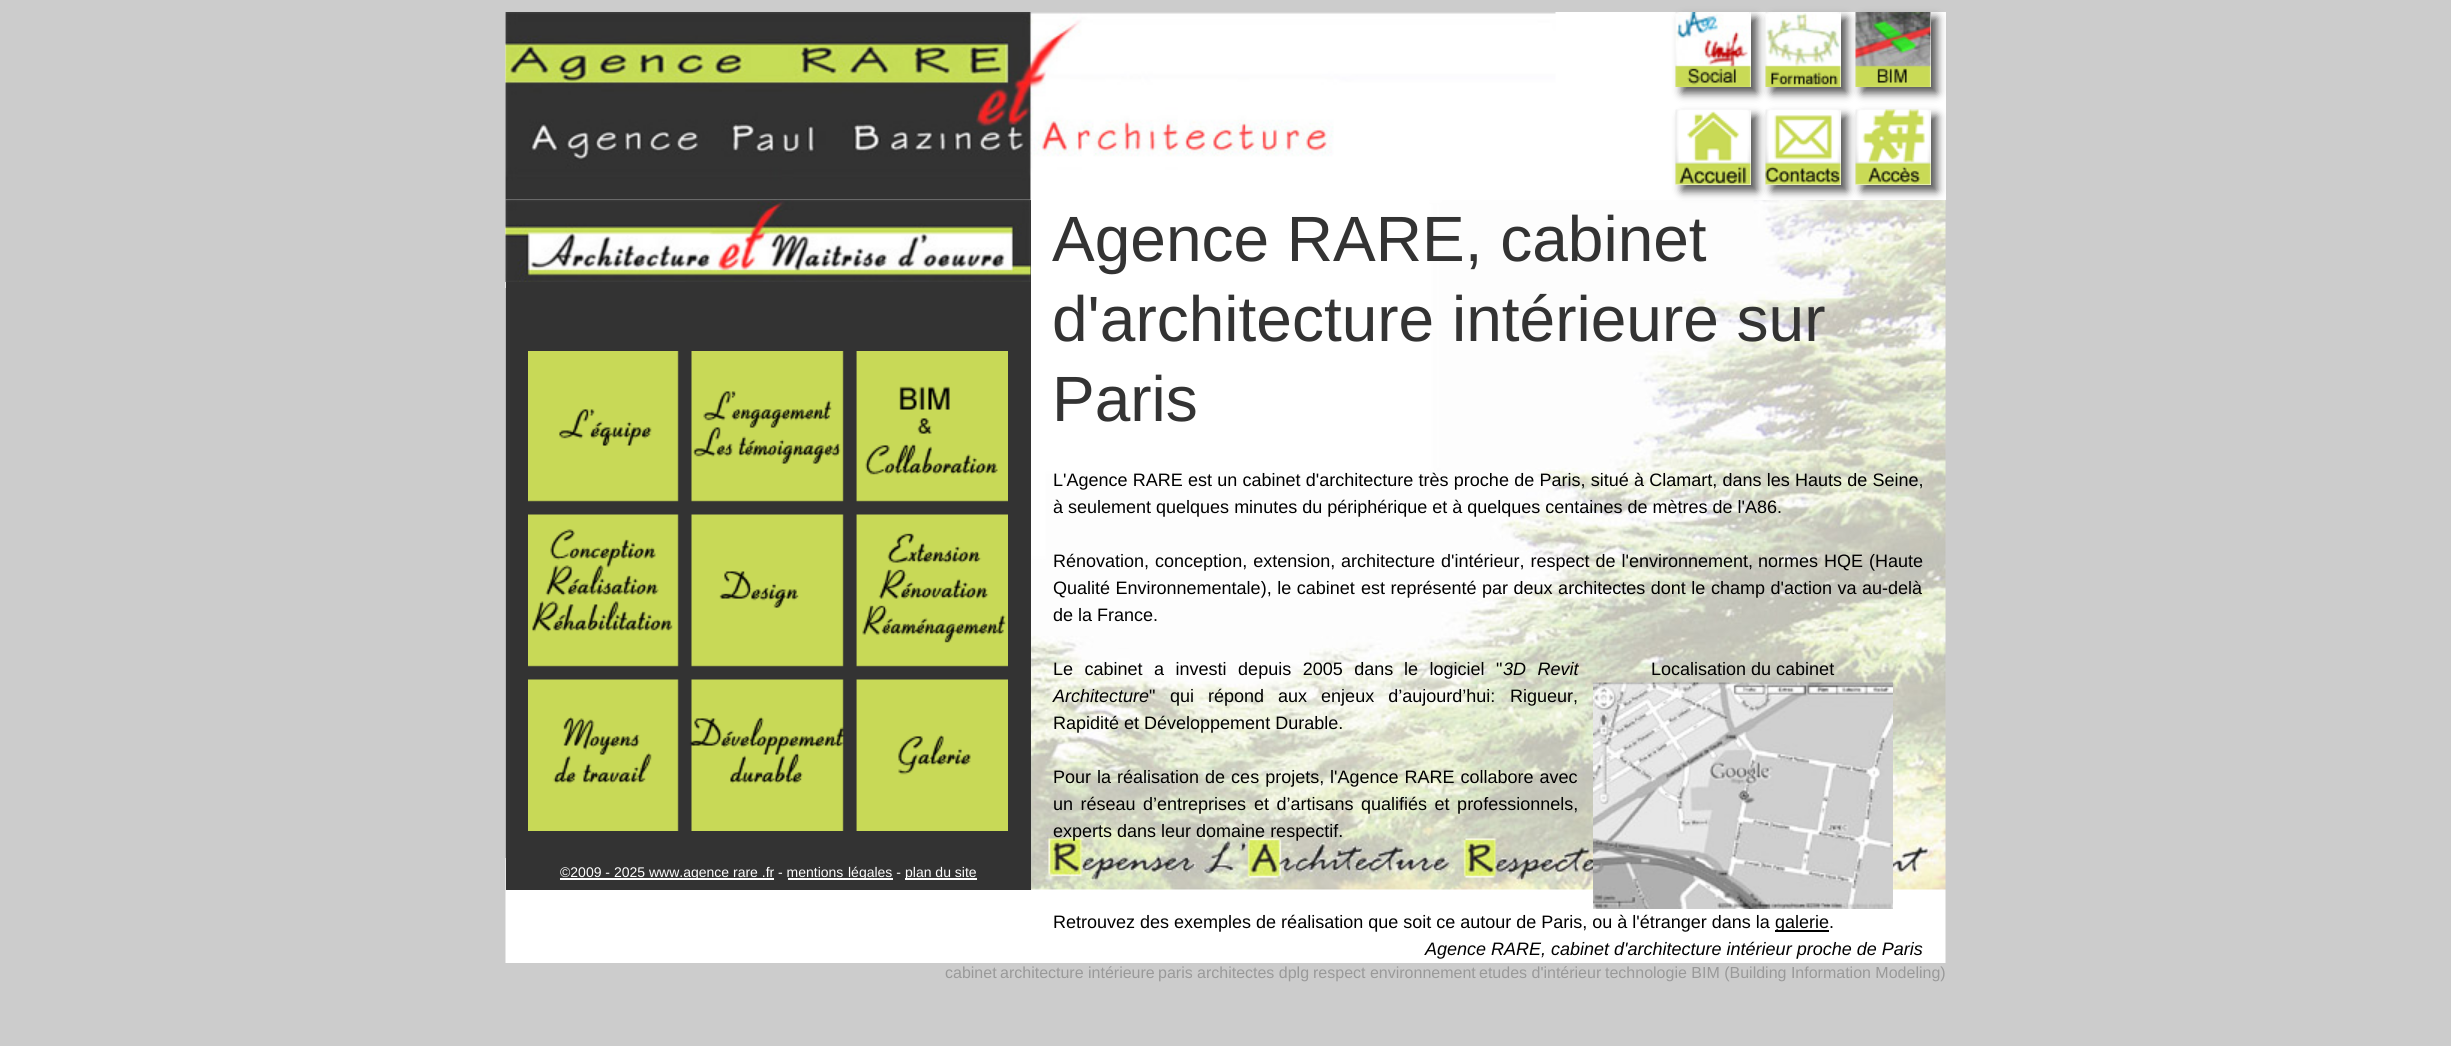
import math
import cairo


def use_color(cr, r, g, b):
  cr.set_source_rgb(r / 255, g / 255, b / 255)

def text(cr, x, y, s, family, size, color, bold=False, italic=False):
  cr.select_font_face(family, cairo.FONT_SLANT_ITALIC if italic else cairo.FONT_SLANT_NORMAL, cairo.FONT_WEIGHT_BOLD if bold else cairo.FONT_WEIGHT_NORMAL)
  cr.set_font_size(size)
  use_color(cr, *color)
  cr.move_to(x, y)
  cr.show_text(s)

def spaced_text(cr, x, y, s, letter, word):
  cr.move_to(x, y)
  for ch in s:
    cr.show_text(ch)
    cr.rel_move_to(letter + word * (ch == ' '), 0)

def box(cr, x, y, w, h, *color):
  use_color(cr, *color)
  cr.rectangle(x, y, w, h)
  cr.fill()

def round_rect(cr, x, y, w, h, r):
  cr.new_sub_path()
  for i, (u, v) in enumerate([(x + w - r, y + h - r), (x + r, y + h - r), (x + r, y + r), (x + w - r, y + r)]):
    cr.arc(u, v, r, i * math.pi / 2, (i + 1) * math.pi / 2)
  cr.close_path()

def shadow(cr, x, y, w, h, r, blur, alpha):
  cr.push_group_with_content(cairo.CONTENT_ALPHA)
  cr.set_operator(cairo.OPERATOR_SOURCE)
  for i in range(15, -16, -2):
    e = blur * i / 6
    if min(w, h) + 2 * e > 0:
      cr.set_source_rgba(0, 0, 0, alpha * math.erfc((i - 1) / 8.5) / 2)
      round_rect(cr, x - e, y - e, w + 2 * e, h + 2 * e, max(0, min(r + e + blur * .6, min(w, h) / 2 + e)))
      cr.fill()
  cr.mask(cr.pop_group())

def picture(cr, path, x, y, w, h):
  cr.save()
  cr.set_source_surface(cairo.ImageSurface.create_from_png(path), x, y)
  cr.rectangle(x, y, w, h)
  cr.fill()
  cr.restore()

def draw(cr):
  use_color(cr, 204, 204, 204)
  cr.paint()
  picture(cr, "img_01.png", 505, 12, 1441, 951)
  box(cr, 1030, 12, 916, 188, 255, 255, 255)
  picture(cr, "img_02.png", 505, 12, 1051, 188)
  cr.save()
  cr.set_fill_rule(cairo.FILL_RULE_EVEN_ODD)
  cr.new_path()
  cr.move_to(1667, 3)
  cr.line_to(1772, 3)
  cr.line_to(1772, 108)
  cr.line_to(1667, 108)
  cr.close_path()
  cr.move_to(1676, 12)
  cr.line_to(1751, 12)
  cr.line_to(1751, 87)
  cr.line_to(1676, 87)
  cr.close_path()
  cr.clip()
  use_color(cr, 85, 85, 85)
  shadow(cr, 1682, 18, 75, 75, 0, 4.5, 1)
  cr.restore()
  picture(cr, "img_03.png", 1675, 12, 76, 75)
  cr.save()
  cr.set_fill_rule(cairo.FILL_RULE_EVEN_ODD)
  cr.new_path()
  cr.move_to(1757, 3)
  cr.line_to(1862, 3)
  cr.line_to(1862, 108)
  cr.line_to(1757, 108)
  cr.close_path()
  cr.move_to(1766, 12)
  cr.line_to(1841, 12)
  cr.line_to(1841, 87)
  cr.line_to(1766, 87)
  cr.close_path()
  cr.clip()
  use_color(cr, 85, 85, 85)
  shadow(cr, 1772, 18, 75, 75, 0, 4.5, 1)
  cr.restore()
  picture(cr, "img_04.png", 1765, 12, 76, 75)
  cr.save()
  cr.set_fill_rule(cairo.FILL_RULE_EVEN_ODD)
  cr.new_path()
  cr.move_to(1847, 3)
  cr.line_to(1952, 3)
  cr.line_to(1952, 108)
  cr.line_to(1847, 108)
  cr.close_path()
  cr.move_to(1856, 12)
  cr.line_to(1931, 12)
  cr.line_to(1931, 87)
  cr.line_to(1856, 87)
  cr.close_path()
  cr.clip()
  use_color(cr, 85, 85, 85)
  shadow(cr, 1862, 18, 75, 75, 0, 4.5, 1)
  cr.restore()
  picture(cr, "img_05.png", 1855, 12, 76, 75)
  cr.save()
  cr.set_fill_rule(cairo.FILL_RULE_EVEN_ODD)
  cr.new_path()
  cr.move_to(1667, 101)
  cr.line_to(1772, 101)
  cr.line_to(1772, 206)
  cr.line_to(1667, 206)
  cr.close_path()
  cr.move_to(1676, 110)
  cr.line_to(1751, 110)
  cr.line_to(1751, 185)
  cr.line_to(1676, 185)
  cr.close_path()
  cr.clip()
  use_color(cr, 85, 85, 85)
  shadow(cr, 1682, 116, 75, 75, 0, 4.5, 1)
  cr.restore()
  picture(cr, "img_06.png", 1675, 109, 76, 76)
  cr.save()
  cr.set_fill_rule(cairo.FILL_RULE_EVEN_ODD)
  cr.new_path()
  cr.move_to(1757, 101)
  cr.line_to(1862, 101)
  cr.line_to(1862, 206)
  cr.line_to(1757, 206)
  cr.close_path()
  cr.move_to(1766, 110)
  cr.line_to(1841, 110)
  cr.line_to(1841, 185)
  cr.line_to(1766, 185)
  cr.close_path()
  cr.clip()
  use_color(cr, 85, 85, 85)
  shadow(cr, 1772, 116, 75, 75, 0, 4.5, 1)
  cr.restore()
  picture(cr, "img_07.png", 1765, 109, 76, 76)
  cr.save()
  cr.set_fill_rule(cairo.FILL_RULE_EVEN_ODD)
  cr.new_path()
  cr.move_to(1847, 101)
  cr.line_to(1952, 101)
  cr.line_to(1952, 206)
  cr.line_to(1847, 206)
  cr.close_path()
  cr.move_to(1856, 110)
  cr.line_to(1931, 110)
  cr.line_to(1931, 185)
  cr.line_to(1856, 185)
  cr.close_path()
  cr.clip()
  use_color(cr, 85, 85, 85)
  shadow(cr, 1862, 116, 75, 75, 0, 4.5, 1)
  cr.restore()
  picture(cr, "img_08.png", 1855, 109, 76, 76)
  box(cr, 506, 200, 525, 690, 51, 51, 51)
  picture(cr, "img_09.png", 505, 199, 526, 83)
  picture(cr, "img_10.png", 505, 288, 503, 570)
  box(cr, 560, 878, 214, 2, 255, 255, 255)
  box(cr, 788, 878, 105, 2, 255, 255, 255)
  box(cr, 905, 878, 72, 2, 255, 255, 255)
  picture(cr, "img_11.png", 1593, 682, 300, 227)
  box(cr, 1775, 930, 54, 2, 0, 0, 0)
  text(cr, 560, 877, "©2009 - 2025 www.agence rare .fr", "Liberation Sans", 14, (255, 255, 255))
  text(cr, 778, 877, "- mentions", "Liberation Sans", 14, (255, 255, 255))
  text(cr, 848, 877, "légales -", "Liberation Sans", 14, (255, 255, 255))
  text(cr, 905, 877, "plan du site", "Liberation Sans", 14, (255, 255, 255))
  text(cr, 1052, 261, "Agence RARE, cabinet", "Liberation Sans", 64, (51, 51, 51))
  text(cr, 1052, 341, "d'architecture intérieure sur", "Liberation Sans", 64, (51, 51, 51))
  text(cr, 1052, 421, "Paris", "Liberation Sans", 64, (51, 51, 51))
  cr.set_font_size(18)
  use_color(cr, 0, 0, 0)
  spaced_text(cr, 1053, 486, "L'Agence RARE est un cabinet d'architecture très proche de Paris, situé à Clamart, dans les Hauts de Seine,", 0, 0.25)
  text(cr, 1053, 513, "à seulement quelques minutes du périphérique et à quelques centaines de mètres de l'A86.", "Liberation Sans", 18, (0, 0, 0))
  spaced_text(cr, 1053, 567, "Rénovation, conception, extension,", 0, 1)
  spaced_text(cr, 1341, 567, "architecture d'intérieur, respect de l'environnement,", 0, 1)
  spaced_text(cr, 1758, 567, "normes HQE (Haute", 0, 1)
  spaced_text(cr, 1053, 594, "Qualité Environnementale), le cabinet", 0, 0.5)
  spaced_text(cr, 1361, 594, "est représenté par deux architectes dont le", 0, 0.5)
  spaced_text(cr, 1711, 594, "champ d'action va au-delà", 0, 0.5)
  text(cr, 1053, 621, "de la France.", "Liberation Sans", 18, (0, 0, 0))
  spaced_text(cr, 1053, 675, "Le cabinet a investi depuis 2005 dans", 0, 6.5)
  spaced_text(cr, 1404, 675, "le logiciel \"", 0, 6.5)
  cr.select_font_face("Liberation Sans", cairo.FONT_SLANT_ITALIC)
  spaced_text(cr, 1503, 675, "3D Revit", 0, 6.5)
  text(cr, 1053, 702, "Architecture", "Liberation Sans", 18, (0, 0, 0), italic=True)
  text(cr, 1149, 702, "\"", "Liberation Sans", 18, (0, 0, 0))
  spaced_text(cr, 1170, 702, "qui répond aux enjeux d’aujourd’hui:", 0, 9)
  text(cr, 1510, 702, "Rigueur,", "Liberation Sans", 18, (0, 0, 0))
  text(cr, 1053, 729, "Rapidité et Développement Durable.", "Liberation Sans", 18, (0, 0, 0))
  spaced_text(cr, 1053, 783, "Pour la réalisation de ces projets,", 0, 1)
  spaced_text(cr, 1330, 783, "l'Agence RARE collabore avec", 0, 1)
  spaced_text(cr, 1053, 810, "un réseau d’entreprises", 0, 2.5)
  spaced_text(cr, 1254, 810, "et d’artisans qualifiés et professionnels,", 0, 2.5)
  text(cr, 1053, 837, "experts dans leur domaine respectif.", "Liberation Sans", 18, (0, 0, 0))
  text(cr, 1651, 675, "Localisation du cabinet", "Liberation Sans", 18, (0, 0, 0))
  text(cr, 1053, 928, "Retrouvez des exemples de réalisation que soit ce autour de Paris, ou à l'étranger dans la", "Liberation Sans", 18, (0, 0, 0))
  text(cr, 1775, 928, "galerie.", "Liberation Sans", 18, (0, 0, 0))
  text(cr, 1425, 955, "Agence RARE, cabinet d'architecture intérieur proche de Paris", "Liberation Sans", 18, (0, 0, 0), italic=True)
  text(cr, 945, 978, "cabinet", "Liberation Sans", 16, (153, 153, 153))
  text(cr, 1000, 978, "architecture", "Liberation Sans", 16, (153, 153, 153))
  text(cr, 1088, 978, "intérieure", "Liberation Sans", 16, (153, 153, 153))
  text(cr, 1158, 978, "paris", "Liberation Sans", 16, (153, 153, 153))
  text(cr, 1197, 978, "architectes dplg", "Liberation Sans", 16, (153, 153, 153))
  text(cr, 1313, 978, "respect environnement", "Liberation Sans", 16, (153, 153, 153))
  text(cr, 1479, 978, "etudes d'intérieur", "Liberation Sans", 16, (153, 153, 153))
  text(cr, 1605, 978, "technologie BIM (Building Information Modeling)", "Liberation Sans", 16, (153, 153, 153))


surface = cairo.ImageSurface(cairo.FORMAT_RGB24, 2451, 1046)
cr = cairo.Context(surface)
options = cairo.FontOptions()
options.set_hint_metrics(cairo.HINT_METRICS_OFF)
options.set_hint_style(cairo.HINT_STYLE_NONE)
cr.set_font_options(options)
cr.set_miter_limit(4)
draw(cr)
surface.write_to_png("out.png")
